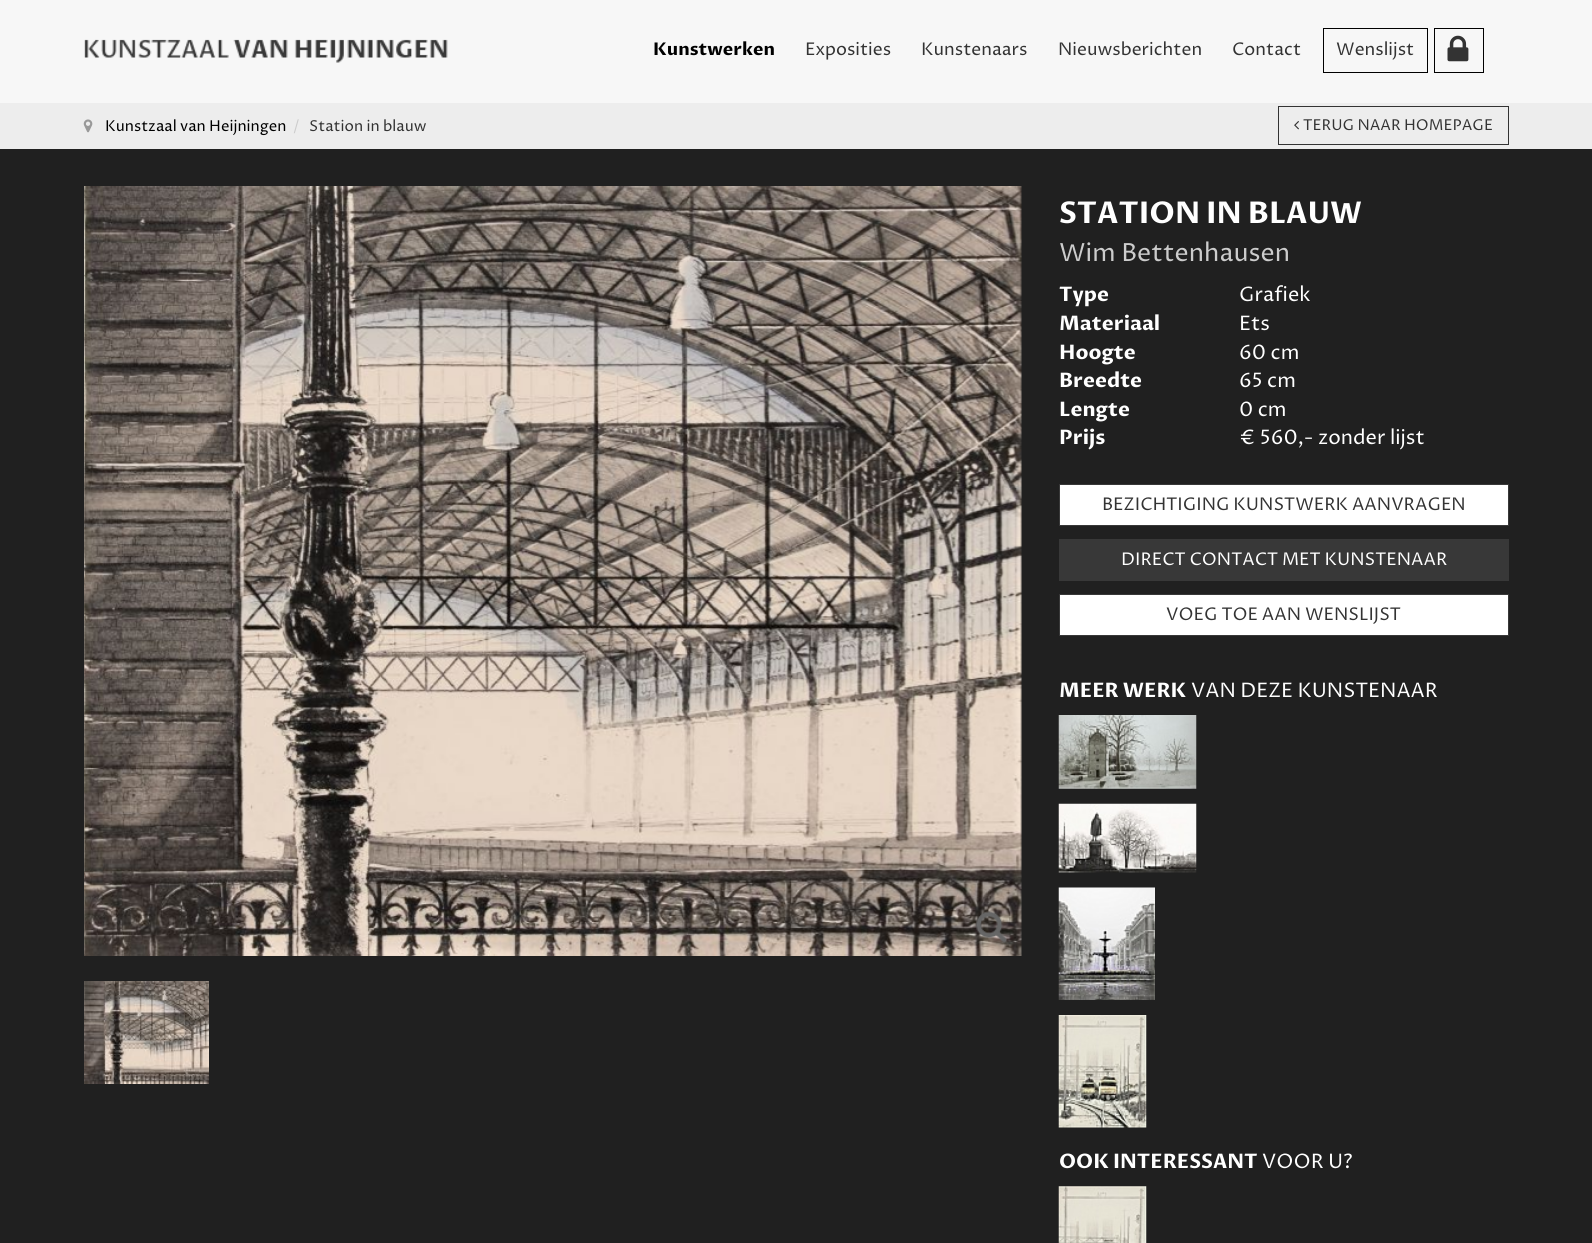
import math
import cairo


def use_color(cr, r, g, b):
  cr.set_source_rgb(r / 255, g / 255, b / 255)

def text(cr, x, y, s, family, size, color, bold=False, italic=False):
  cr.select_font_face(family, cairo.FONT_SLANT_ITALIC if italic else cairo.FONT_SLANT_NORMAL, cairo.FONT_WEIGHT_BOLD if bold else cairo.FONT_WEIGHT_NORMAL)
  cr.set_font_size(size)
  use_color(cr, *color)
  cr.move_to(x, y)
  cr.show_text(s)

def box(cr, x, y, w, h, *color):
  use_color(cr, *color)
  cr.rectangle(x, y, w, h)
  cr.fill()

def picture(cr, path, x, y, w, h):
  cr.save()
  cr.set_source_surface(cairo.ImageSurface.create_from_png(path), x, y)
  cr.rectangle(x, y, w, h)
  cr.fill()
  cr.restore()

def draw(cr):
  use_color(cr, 32, 32, 32)
  cr.paint()
  box(cr, 0, 0, 1592, 103, 247, 247, 247)
  picture(cr, "img_01.png", 84, 39, 364, 24)
  cr.rectangle(1323.5, 28.5, 104, 44)
  use_color(cr, 0, 0, 0)
  cr.set_line_width(1)
  cr.stroke()
  cr.rectangle(1434.5, 28.5, 49, 44)
  cr.stroke()
  picture(cr, "img_02.png", 1447, 35, 22, 27)
  box(cr, 0, 103, 1592, 46, 237, 237, 237)
  picture(cr, "img_03.png", 83, 119, 10, 14)
  cr.rectangle(1278.5, 106.5, 230, 38)
  use_color(cr, 51, 51, 51)
  cr.stroke()
  picture(cr, "img_04.png", 1294, 121, 5, 9)
  picture(cr, "img_05.png", 84, 186, 938, 770)
  picture(cr, "img_06.png", 976, 911, 31, 32)
  picture(cr, "img_07.png", 84, 981, 125, 103)
  use_color(cr, 255, 255, 255)
  cr.rectangle(1059.5, 484.5, 449, 41)
  cr.fill_preserve()
  use_color(cr, 56, 56, 56)
  cr.stroke()
  box(cr, 1059, 539, 450, 42, 56, 56, 56)
  use_color(cr, 255, 255, 255)
  cr.rectangle(1059.5, 594.5, 449, 41)
  cr.fill_preserve()
  use_color(cr, 56, 56, 56)
  cr.stroke()
  picture(cr, "img_08.png", 1058, 715, 139, 74)
  picture(cr, "img_09.png", 1058, 803, 139, 70)
  picture(cr, "img_10.png", 1058, 887, 97, 113)
  picture(cr, "img_11.png", 1058, 1015, 89, 113)
  picture(cr, "img_12.png", 1058, 1186, 89, 57)
  text(cr, 653, 55, "Kunstwerken", "Proza Libre", 17.5, (0, 0, 0), bold=True)
  text(cr, 805, 55, "Exposities", "Proza Libre", 17.5, (51, 51, 51))
  text(cr, 921, 55, "Kunstenaars", "Proza Libre", 17.5, (51, 51, 51))
  text(cr, 1058, 55, "Nieuwsberichten", "Proza Libre", 17.5, (51, 51, 51))
  text(cr, 1232, 55, "Contact", "Proza Libre", 17.5, (51, 51, 51))
  text(cr, 1336, 55, "Wenslijst", "Proza Libre", 17.5, (51, 51, 51))
  text(cr, 105, 131, "Kunstzaal van Heijningen", "Proza Libre", 15, (0, 0, 0))
  text(cr, 293, 131, "/", "Proza Libre", 15, (204, 204, 204))
  text(cr, 309, 131, "Station in blauw", "Proza Libre", 15, (51, 51, 51))
  text(cr, 1303, 130, "TERUG NAAR HOMEPAGE", "Proza Libre", 15, (51, 51, 51))
  text(cr, 1059, 223, "STATION IN BLAUW", "Proza Libre", 30, (255, 255, 255), bold=True)
  text(cr, 1059, 261, "Wim Bettenhausen", "Proza Libre", 25, (204, 204, 204))
  text(cr, 1059, 301, "Type", "Proza Libre", 20, (255, 255, 255), bold=True)
  text(cr, 1239, 301, "Grafiek", "Proza Libre", 20, (255, 255, 255))
  text(cr, 1059, 330, "Materiaal", "Proza Libre", 20, (255, 255, 255), bold=True)
  text(cr, 1239, 330, "Ets", "Proza Libre", 20, (255, 255, 255))
  text(cr, 1059, 359, "Hoogte", "Proza Libre", 20, (255, 255, 255), bold=True)
  text(cr, 1239, 359, "60 cm", "Proza Libre", 20, (255, 255, 255))
  text(cr, 1059, 387, "Breedte", "Proza Libre", 20, (255, 255, 255), bold=True)
  text(cr, 1239, 387, "65 cm", "Proza Libre", 20, (255, 255, 255))
  text(cr, 1059, 416, "Lengte", "Proza Libre", 20, (255, 255, 255), bold=True)
  text(cr, 1239, 416, "0 cm", "Proza Libre", 20, (255, 255, 255))
  text(cr, 1059, 444, "Prijs", "Proza Libre", 20, (255, 255, 255), bold=True)
  text(cr, 1239, 444, "€ 560,- zonder lijst", "Proza Libre", 20, (255, 255, 255))
  text(cr, 1102, 510, "BEZICHTIGING KUNSTWERK AANVRAGEN", "Proza Libre", 17.5, (51, 51, 51))
  text(cr, 1121, 565, "DIRECT CONTACT MET KUNSTENAAR", "Proza Libre", 17.5, (255, 255, 255))
  text(cr, 1166, 620, "VOEG TOE AAN WENSLIJST", "Proza Libre", 17.5, (51, 51, 51))
  text(cr, 1059, 697, "MEER WERK", "Proza Libre", 20, (255, 255, 255), bold=True)
  text(cr, 1191, 697, "VAN DEZE KUNSTENAAR", "Proza Libre", 20, (255, 255, 255))
  text(cr, 1059, 1168, "OOK INTERESSANT", "Proza Libre", 20, (255, 255, 255), bold=True)
  text(cr, 1262, 1168, "VOOR U?", "Proza Libre", 20, (255, 255, 255))


surface = cairo.ImageSurface(cairo.FORMAT_RGB24, 1592, 1243)
cr = cairo.Context(surface)
options = cairo.FontOptions()
options.set_hint_metrics(cairo.HINT_METRICS_OFF)
options.set_hint_style(cairo.HINT_STYLE_NONE)
cr.set_font_options(options)
cr.set_miter_limit(4)
draw(cr)
surface.write_to_png("out.png")
